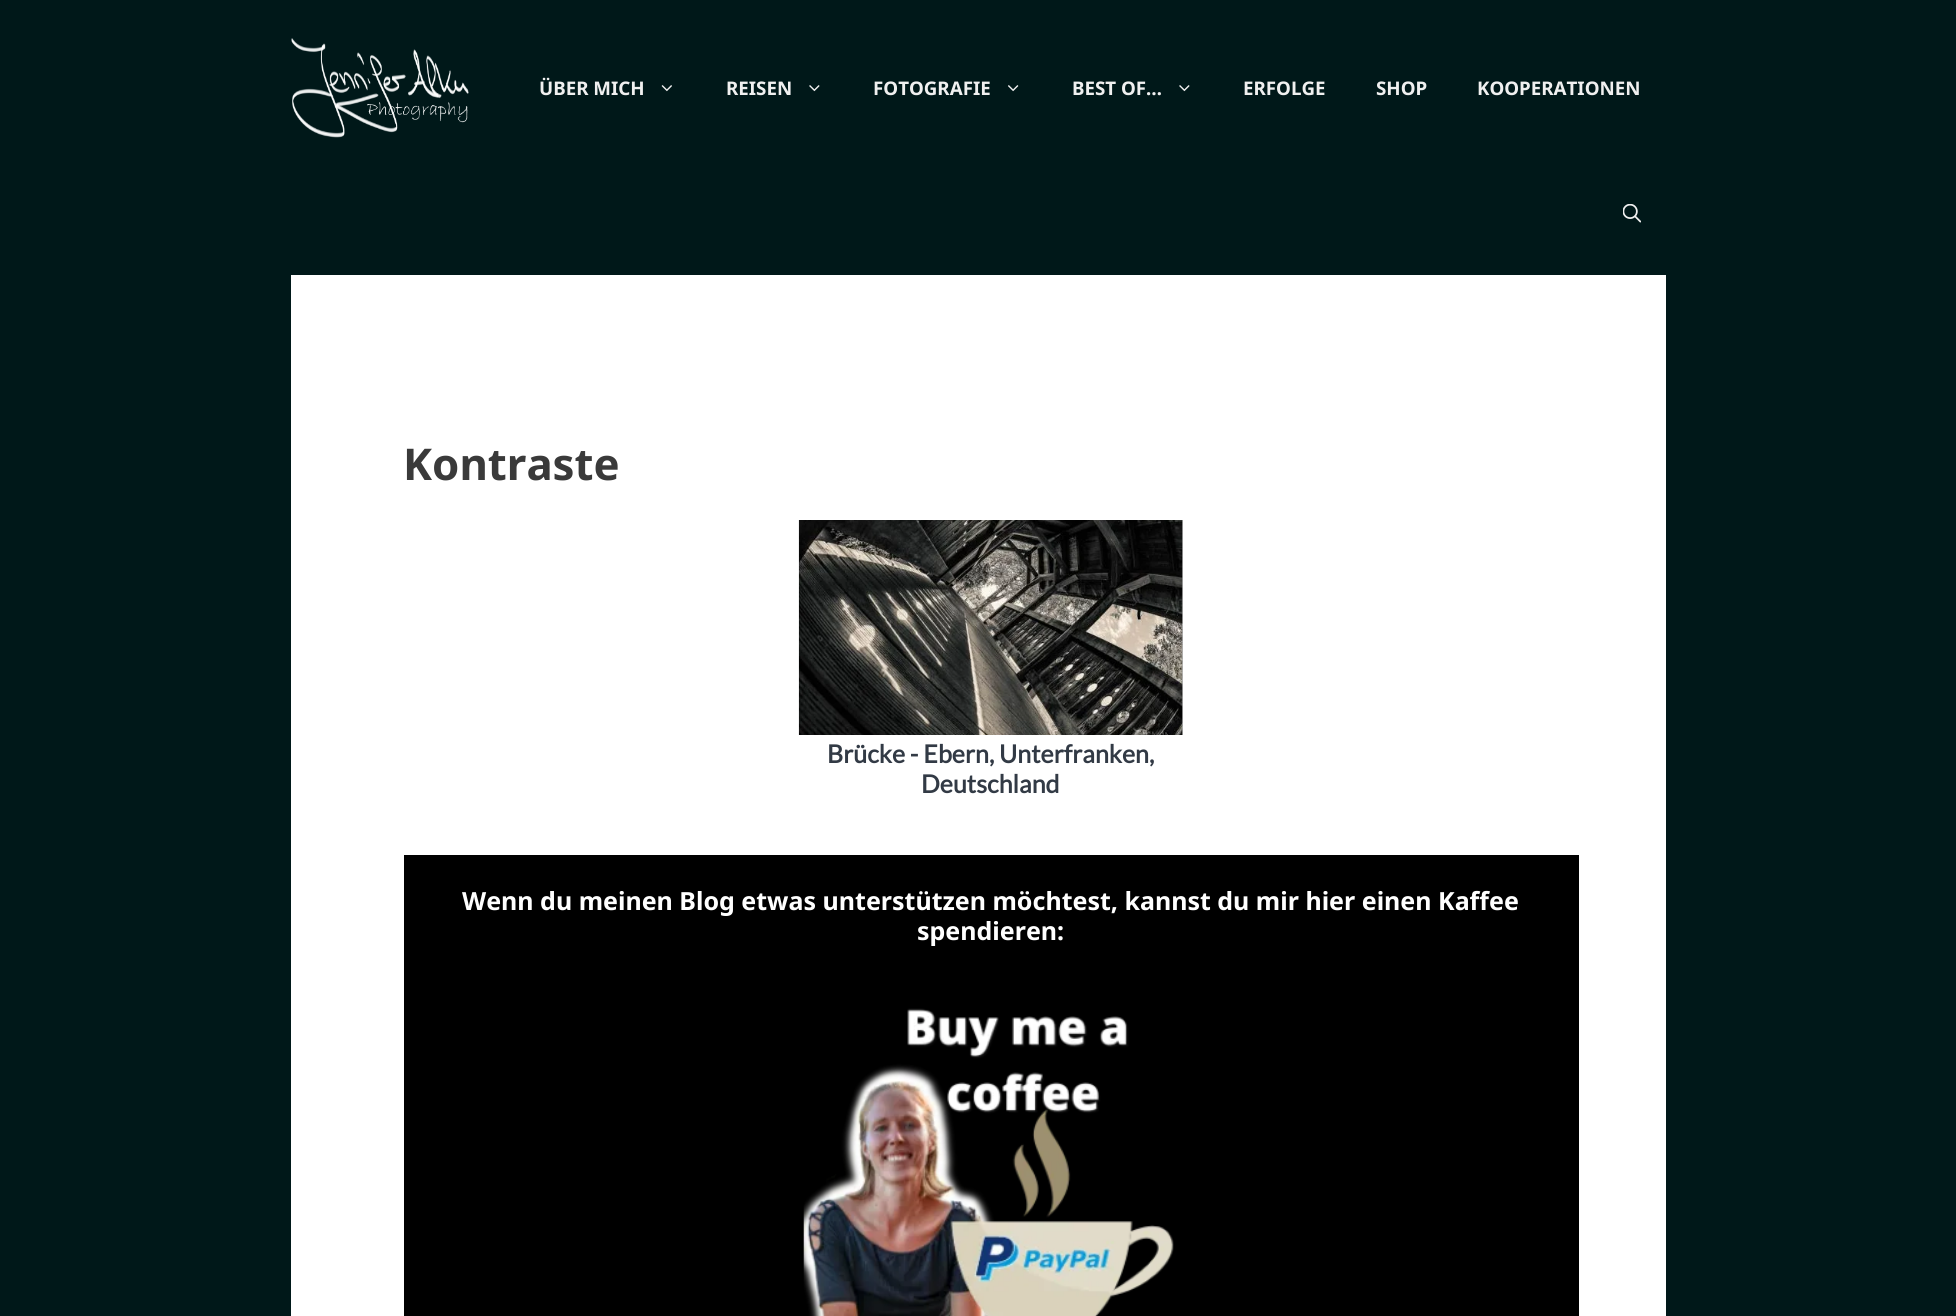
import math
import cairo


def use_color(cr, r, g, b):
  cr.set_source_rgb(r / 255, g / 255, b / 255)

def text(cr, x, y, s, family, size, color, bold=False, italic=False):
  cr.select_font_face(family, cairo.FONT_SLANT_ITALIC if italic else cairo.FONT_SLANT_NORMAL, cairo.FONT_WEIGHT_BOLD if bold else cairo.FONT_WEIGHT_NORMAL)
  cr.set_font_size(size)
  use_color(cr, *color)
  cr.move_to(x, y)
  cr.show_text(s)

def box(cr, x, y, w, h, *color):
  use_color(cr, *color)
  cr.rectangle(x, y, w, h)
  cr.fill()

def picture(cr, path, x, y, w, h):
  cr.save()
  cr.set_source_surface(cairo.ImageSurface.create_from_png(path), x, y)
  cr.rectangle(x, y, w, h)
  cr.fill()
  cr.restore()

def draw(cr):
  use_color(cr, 0, 24, 25)
  cr.paint()
  picture(cr, "img_01.png", 291, 38, 178, 100)
  picture(cr, "img_02.png", 661, 85, 11, 7)
  picture(cr, "img_03.png", 809, 85, 11, 7)
  picture(cr, "img_04.png", 1008, 85, 11, 7)
  picture(cr, "img_03.png", 1179, 85, 11, 7)
  picture(cr, "img_05.png", 1623, 204, 18, 19)
  box(cr, 291, 275, 1375, 1041, 255, 255, 255)
  box(cr, 1182, 520, 1, 215, 179, 179, 179)
  picture(cr, "img_06.png", 798, 520, 385, 215)
  box(cr, 404, 855, 1175, 461, 0, 0, 0)
  picture(cr, "img_07.png", 803, 1008, 371, 308)
  text(cr, 539, 95, "ÜBER MICH", "Noto Sans", 18.75, (240, 240, 240), bold=True)
  text(cr, 726, 95, "REISEN", "Noto Sans", 18.75, (240, 240, 240), bold=True)
  text(cr, 873, 95, "FOTOGRAFIE", "Noto Sans", 18.75, (240, 240, 240), bold=True)
  text(cr, 1072, 95, "BEST OF…", "Noto Sans", 18.75, (240, 240, 240), bold=True)
  text(cr, 1243, 95, "ERFOLGE", "Noto Sans", 18.75, (240, 240, 240), bold=True)
  text(cr, 1376, 95, "SHOP", "Noto Sans", 18.75, (240, 240, 240), bold=True)
  text(cr, 1477, 95, "KOOPERATIONEN", "Noto Sans", 18.75, (240, 240, 240), bold=True)
  text(cr, 403, 480, "Kontraste", "Noto Sans", 43.75, (58, 58, 58), bold=True)
  text(cr, 827, 763, "Brücke - Ebern, Unterfranken,", "Lato", 25, (50, 58, 69), bold=True)
  text(cr, 921, 793, "Deutschland", "Lato", 25, (50, 58, 69), bold=True)
  text(cr, 462, 910, "Wenn du meinen Blog etwas unterstützen möchtest, kannst du mir hier einen Kaffee", "Noto Sans", 25, (255, 255, 255), bold=True)
  text(cr, 917, 940, "spendieren:", "Noto Sans", 25, (255, 255, 255), bold=True)


surface = cairo.ImageSurface(cairo.FORMAT_RGB24, 1956, 1316)
cr = cairo.Context(surface)
options = cairo.FontOptions()
options.set_hint_metrics(cairo.HINT_METRICS_OFF)
options.set_hint_style(cairo.HINT_STYLE_NONE)
cr.set_font_options(options)
cr.set_miter_limit(4)
draw(cr)
surface.write_to_png("out.png")
